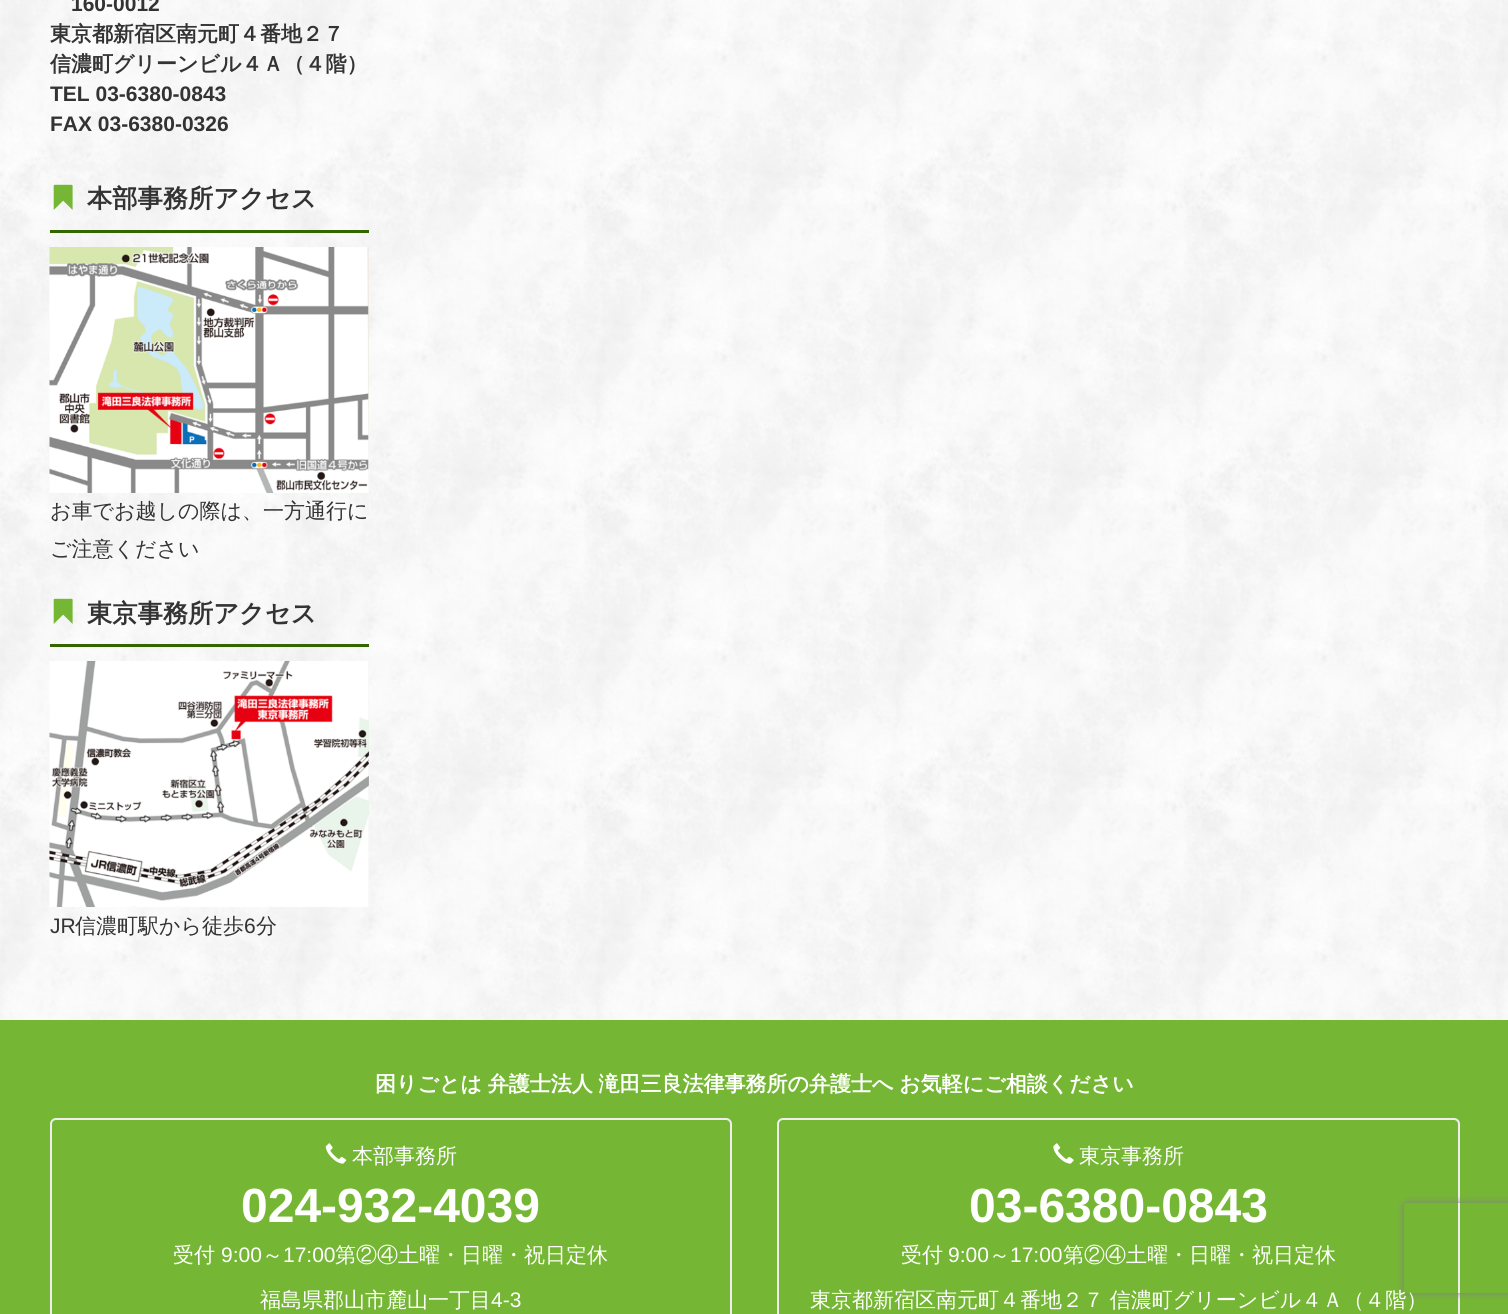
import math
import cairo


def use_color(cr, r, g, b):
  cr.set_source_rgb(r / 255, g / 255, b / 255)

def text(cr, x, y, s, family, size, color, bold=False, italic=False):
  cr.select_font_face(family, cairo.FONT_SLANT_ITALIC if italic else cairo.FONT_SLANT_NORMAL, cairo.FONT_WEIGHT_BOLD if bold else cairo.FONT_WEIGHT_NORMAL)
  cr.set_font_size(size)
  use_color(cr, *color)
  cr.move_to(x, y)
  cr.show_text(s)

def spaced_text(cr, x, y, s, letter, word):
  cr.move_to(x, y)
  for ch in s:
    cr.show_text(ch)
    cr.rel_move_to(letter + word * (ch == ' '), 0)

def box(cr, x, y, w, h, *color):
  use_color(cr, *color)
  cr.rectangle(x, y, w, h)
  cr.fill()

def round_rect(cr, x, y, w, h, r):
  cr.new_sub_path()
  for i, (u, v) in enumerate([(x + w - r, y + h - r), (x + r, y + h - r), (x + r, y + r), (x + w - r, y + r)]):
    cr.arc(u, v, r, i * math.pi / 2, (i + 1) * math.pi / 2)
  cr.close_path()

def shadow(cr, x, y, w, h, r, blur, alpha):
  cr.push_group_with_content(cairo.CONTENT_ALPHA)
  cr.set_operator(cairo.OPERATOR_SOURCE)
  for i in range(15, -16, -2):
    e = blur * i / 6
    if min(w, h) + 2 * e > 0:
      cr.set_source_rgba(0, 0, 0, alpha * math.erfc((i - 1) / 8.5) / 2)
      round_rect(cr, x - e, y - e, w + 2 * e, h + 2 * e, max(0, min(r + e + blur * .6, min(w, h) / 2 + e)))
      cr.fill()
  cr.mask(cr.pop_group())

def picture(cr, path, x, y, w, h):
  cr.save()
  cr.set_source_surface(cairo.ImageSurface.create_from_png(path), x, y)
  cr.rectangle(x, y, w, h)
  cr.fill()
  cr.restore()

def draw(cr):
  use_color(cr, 255, 255, 255)
  cr.paint()
  picture(cr, "img_01.png", 0, 0, 1508, 1020)
  box(cr, 50, 230, 319, 3, 51, 102, 0)
  picture(cr, "img_02.png", 53, 184, 20, 26)
  picture(cr, "img_03.png", 49, 247, 320, 246)
  box(cr, 50, 644, 319, 3, 51, 102, 0)
  picture(cr, "img_04.png", 53, 598, 20, 26)
  picture(cr, "img_05.png", 49, 661, 320, 246)
  box(cr, 0, 1020, 1508, 294, 117, 183, 52)
  round_rect(cr, 51, 1119, 680, 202, 5)
  use_color(cr, 238, 238, 238)
  cr.stroke()
  picture(cr, "img_06.png", 325, 1143, 22, 21)
  round_rect(cr, 778, 1119, 681, 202, 5)
  cr.stroke()
  picture(cr, "img_07.png", 1053, 1143, 21, 21)
  cr.save()
  cr.set_fill_rule(cairo.FILL_RULE_EVEN_ODD)
  cr.new_path()
  cr.move_to(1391, 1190)
  cr.line_to(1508, 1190)
  cr.line_to(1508, 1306)
  cr.line_to(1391, 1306)
  cr.close_path()
  cr.move_to(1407, 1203)
  cr.line_to(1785, 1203)
  cr.curve_to(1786.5, 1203, 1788, 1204.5, 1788, 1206)
  cr.line_to(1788, 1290)
  cr.curve_to(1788, 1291.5, 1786.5, 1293, 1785, 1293)
  cr.line_to(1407, 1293)
  cr.curve_to(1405.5, 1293, 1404, 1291.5, 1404, 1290)
  cr.line_to(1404, 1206)
  cr.curve_to(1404, 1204.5, 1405.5, 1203, 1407, 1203)
  cr.close_path()
  cr.clip()
  use_color(cr, 128, 128, 128)
  shadow(cr, 1404, 1203, 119, 90, 3, 4, 1)
  cr.restore()
  text(cr, 71, 11, "160-0012", "Liberation Sans", 21, (51, 51, 51), bold=True)
  text(cr, 50, 41, "東京都新宿区南元町４番地２７", "WenQuanYi Zen Hei", 21, (51, 51, 51), bold=True)
  text(cr, 50, 71, "信濃町グリーンビル４Ａ（４階）", "WenQuanYi Zen Hei", 21, (51, 51, 51), bold=True)
  text(cr, 50, 101, "TEL 03-6380-0843", "Liberation Sans", 21, (51, 51, 51), bold=True)
  text(cr, 50, 131, "FAX 03-6380-0326", "Liberation Sans", 21, (51, 51, 51), bold=True)
  text(cr, 87, 207, "本部事務所アクセス", "WenQuanYi Zen Hei", 25.25, (51, 51, 51), bold=True)
  text(cr, 50, 518, "お車でお越しの際は、一方通行に", "WenQuanYi Zen Hei Medium", 21, (51, 51, 51))
  text(cr, 50, 556, "ご注意ください", "WenQuanYi Zen Hei Medium", 21, (51, 51, 51))
  text(cr, 87, 622, "東京事務所アクセス", "WenQuanYi Zen Hei", 25.25, (51, 51, 51), bold=True)
  text(cr, 50, 933, "JR", "Liberation Sans", 21, (51, 51, 51))
  text(cr, 75, 933, "信濃町駅から徒歩", "WenQuanYi Zen Hei Medium", 21, (51, 51, 51))
  text(cr, 244, 933, "6", "Liberation Sans", 21, (51, 51, 51))
  text(cr, 256, 933, "分", "WenQuanYi Zen Hei Medium", 21, (51, 51, 51))
  cr.select_font_face("WenQuanYi Zen Hei", cairo.FONT_SLANT_NORMAL, cairo.FONT_WEIGHT_BOLD)
  use_color(cr, 255, 255, 255)
  spaced_text(cr, 375, 1091, "困りごとは 弁護士法人 滝田三良法律事務所の弁護士へ お気軽にご相談ください", 0, -0.5)
  text(cr, 352, 1163, "本部事務所", "WenQuanYi Zen Hei Medium", 21, (255, 255, 255))
  text(cr, 241, 1222, "024-932-4039", "Liberation Sans", 48, (255, 255, 255), bold=True)
  text(cr, 173, 1262, "受付", "WenQuanYi Zen Hei Medium", 21, (255, 255, 255))
  text(cr, 221, 1262, "9:00", "Liberation Sans", 21, (255, 255, 255))
  text(cr, 262, 1262, "～", "WenQuanYi Zen Hei Medium", 21, (255, 255, 255))
  text(cr, 283, 1262, "17:00", "Liberation Sans", 21, (255, 255, 255))
  text(cr, 335, 1262, "第②④土曜・日曜・祝日定休", "WenQuanYi Zen Hei Medium", 21, (255, 255, 255))
  text(cr, 260, 1307, "福島県郡山市麓山一丁目", "WenQuanYi Zen Hei Medium", 21, (255, 255, 255))
  text(cr, 491, 1307, "4-3", "Liberation Sans", 21, (255, 255, 255))
  text(cr, 1079, 1163, "東京事務所", "WenQuanYi Zen Hei Medium", 21, (255, 255, 255))
  text(cr, 969, 1222, "03-6380-0843", "Liberation Sans", 48, (255, 255, 255), bold=True)
  text(cr, 901, 1262, "受付", "WenQuanYi Zen Hei Medium", 21, (255, 255, 255))
  text(cr, 948, 1262, "9:00", "Liberation Sans", 21, (255, 255, 255))
  text(cr, 989, 1262, "～", "WenQuanYi Zen Hei Medium", 21, (255, 255, 255))
  text(cr, 1010, 1262, "17:00", "Liberation Sans", 21, (255, 255, 255))
  text(cr, 1063, 1262, "第②④土曜・日曜・祝日定休", "WenQuanYi Zen Hei Medium", 21, (255, 255, 255))
  spaced_text(cr, 810, 1307, "東京都新宿区南元町４番地２７ 信濃町グリーンビル４Ａ（４階）", 0, -0.5)


surface = cairo.ImageSurface(cairo.FORMAT_RGB24, 1508, 1314)
cr = cairo.Context(surface)
options = cairo.FontOptions()
options.set_hint_metrics(cairo.HINT_METRICS_OFF)
options.set_hint_style(cairo.HINT_STYLE_NONE)
cr.set_font_options(options)
cr.set_miter_limit(4)
draw(cr)
surface.write_to_png("out.png")
